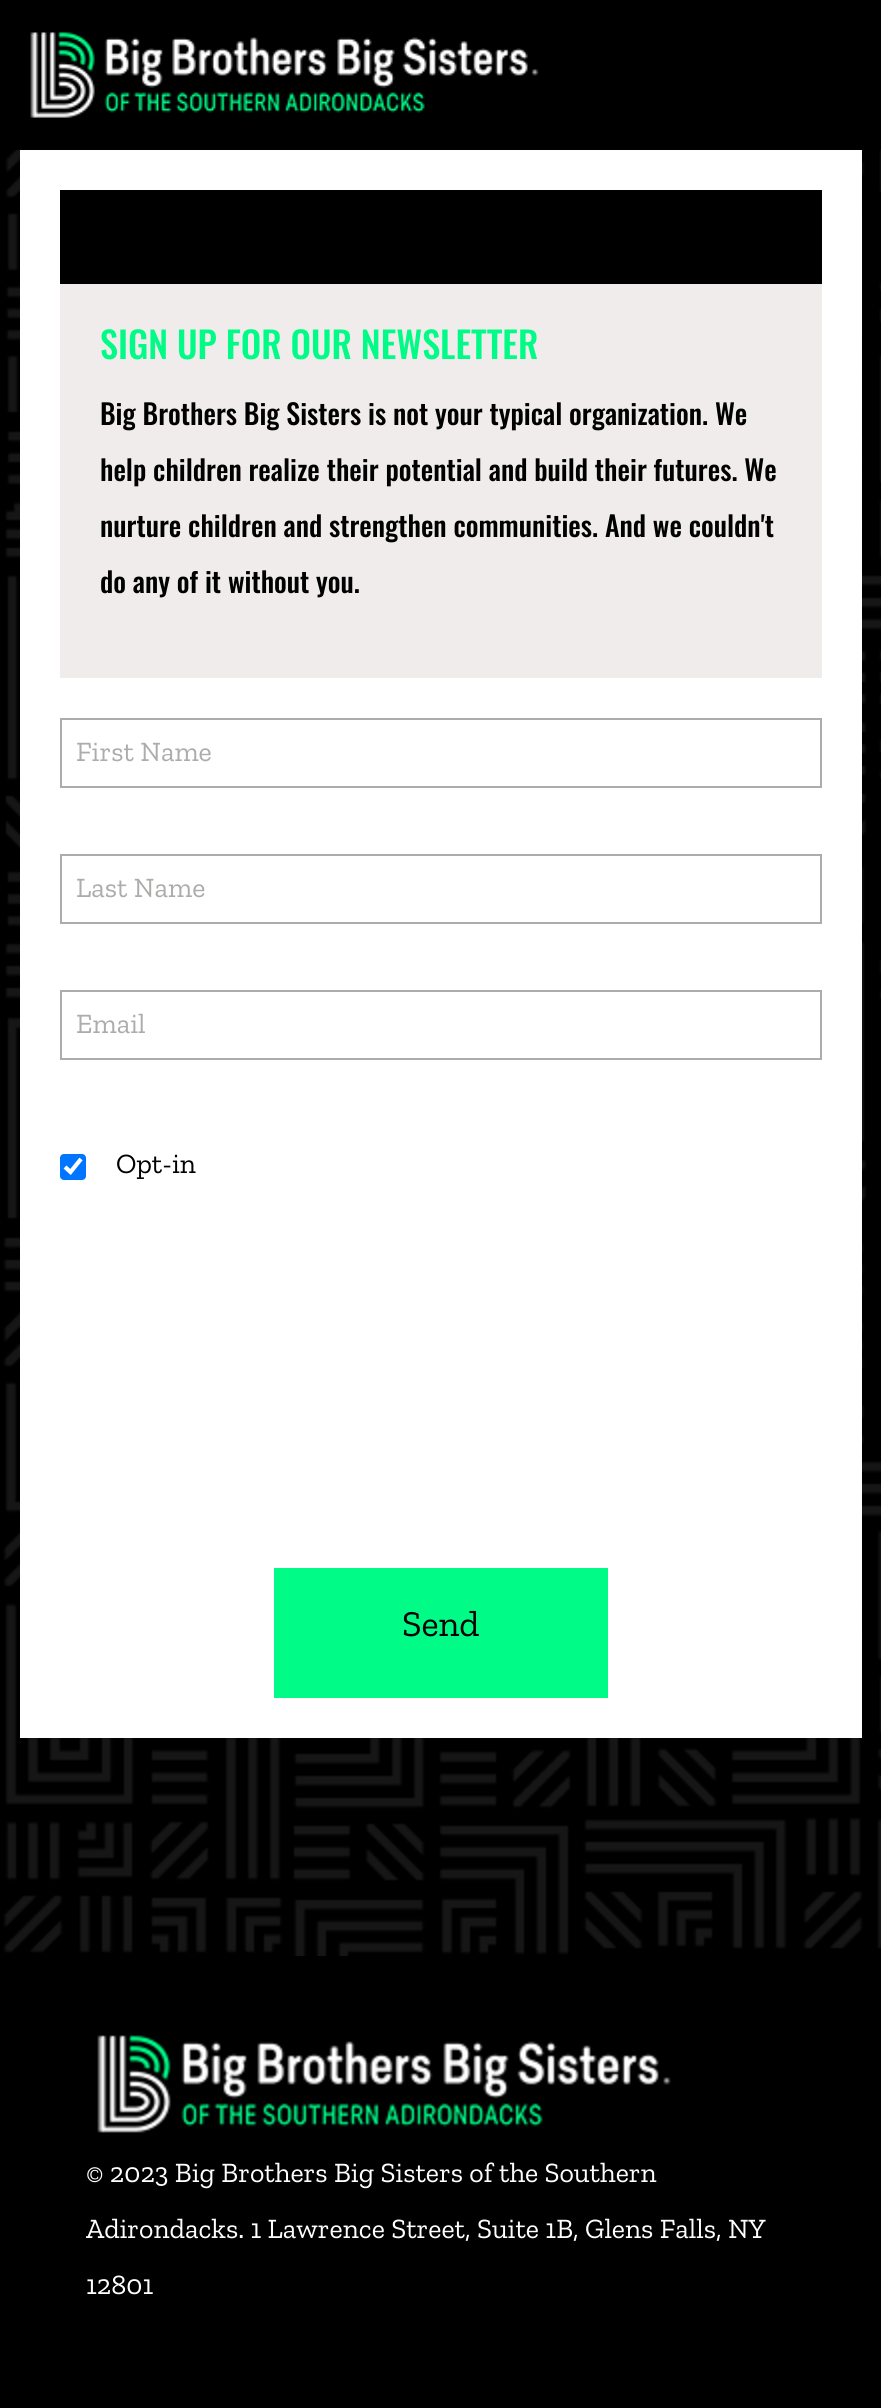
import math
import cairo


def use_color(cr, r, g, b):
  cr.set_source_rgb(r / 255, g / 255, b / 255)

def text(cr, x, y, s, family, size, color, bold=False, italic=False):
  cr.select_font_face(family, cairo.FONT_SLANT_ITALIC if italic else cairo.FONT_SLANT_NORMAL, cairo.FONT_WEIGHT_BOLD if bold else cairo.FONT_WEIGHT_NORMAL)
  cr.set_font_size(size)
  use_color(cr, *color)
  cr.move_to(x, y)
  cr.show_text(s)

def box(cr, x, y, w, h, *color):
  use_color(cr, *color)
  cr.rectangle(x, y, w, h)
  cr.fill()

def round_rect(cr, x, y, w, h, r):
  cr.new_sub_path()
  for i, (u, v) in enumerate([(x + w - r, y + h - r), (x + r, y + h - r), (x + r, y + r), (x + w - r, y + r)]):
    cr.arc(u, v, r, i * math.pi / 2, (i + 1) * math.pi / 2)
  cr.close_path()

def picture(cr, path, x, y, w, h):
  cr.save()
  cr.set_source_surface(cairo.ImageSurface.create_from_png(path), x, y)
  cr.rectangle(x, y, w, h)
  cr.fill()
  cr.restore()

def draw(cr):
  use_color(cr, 255, 255, 255)
  cr.paint()
  picture(cr, "img_01.png", 0, 150, 881, 1806)
  box(cr, 0, 0, 881, 150, 0, 0, 0)
  picture(cr, "img_02.png", 30, 32, 509, 86)
  box(cr, 20, 150, 842, 1588, 255, 255, 255)
  box(cr, 60, 190, 762, 94, 0, 0, 0)
  box(cr, 60, 284, 762, 394, 239, 236, 235)
  cr.rectangle(61, 719, 760, 68)
  use_color(cr, 172, 172, 170)
  cr.stroke()
  cr.rectangle(61, 855, 760, 68)
  cr.stroke()
  cr.rectangle(61, 991, 760, 68)
  cr.stroke()
  use_color(cr, 0, 117, 255)
  round_rect(cr, 60, 1154, 26, 26, 4)
  cr.fill()
  cr.new_path()
  cr.move_to(65, 1167)
  cr.line_to(70.5, 1172)
  cr.line_to(81, 1159)
  use_color(cr, 255, 255, 255)
  cr.set_line_width(4.2)
  cr.stroke()
  box(cr, 274, 1568, 334, 130, 0, 252, 135)
  box(cr, 0, 1956, 881, 452, 0, 0, 0)
  picture(cr, "img_03.png", 97, 2035, 574, 98)
  text(cr, 100, 359, "SIGN UP FOR OUR NEWSLETTER", "Oswald Medium", 36.4, (0, 252, 135))
  text(cr, 100, 425, "Big Brothers Big Sisters is not your typical organization. We", "Oswald Medium", 28, (0, 0, 0))
  text(cr, 100, 481, "help children realize their potential and build their futures. We", "Oswald Medium", 28, (0, 0, 0))
  text(cr, 100, 537, "nurture children and strengthen communities. And we couldn't", "Oswald Medium", 28, (0, 0, 0))
  text(cr, 100, 593, "do any of it without you.", "Oswald Medium", 28, (0, 0, 0))
  text(cr, 76, 761, "First Name", "Zilla Slab", 28, (172, 172, 170))
  text(cr, 76, 897, "Last Name", "Zilla Slab", 28, (172, 172, 170))
  text(cr, 76, 1033, "Email", "Zilla Slab", 28, (172, 172, 170))
  text(cr, 116, 1173, "Opt-in", "Zilla Slab", 28, (0, 0, 0))
  text(cr, 402, 1636, "Send", "Zilla Slab", 36.4, (0, 0, 0))
  text(cr, 86, 2182, "© 2023 Big Brothers Big Sisters of the Southern", "Zilla Slab", 28, (255, 255, 255))
  text(cr, 86, 2238, "Adirondacks. 1 Lawrence Street, Suite 1B, Glens Falls, NY", "Zilla Slab", 28, (255, 255, 255))
  text(cr, 86, 2294, "12801", "Zilla Slab", 28, (255, 255, 255))


surface = cairo.ImageSurface(cairo.FORMAT_RGB24, 881, 2408)
cr = cairo.Context(surface)
options = cairo.FontOptions()
options.set_hint_metrics(cairo.HINT_METRICS_OFF)
options.set_hint_style(cairo.HINT_STYLE_NONE)
cr.set_font_options(options)
cr.set_miter_limit(4)
draw(cr)
surface.write_to_png("out.png")
